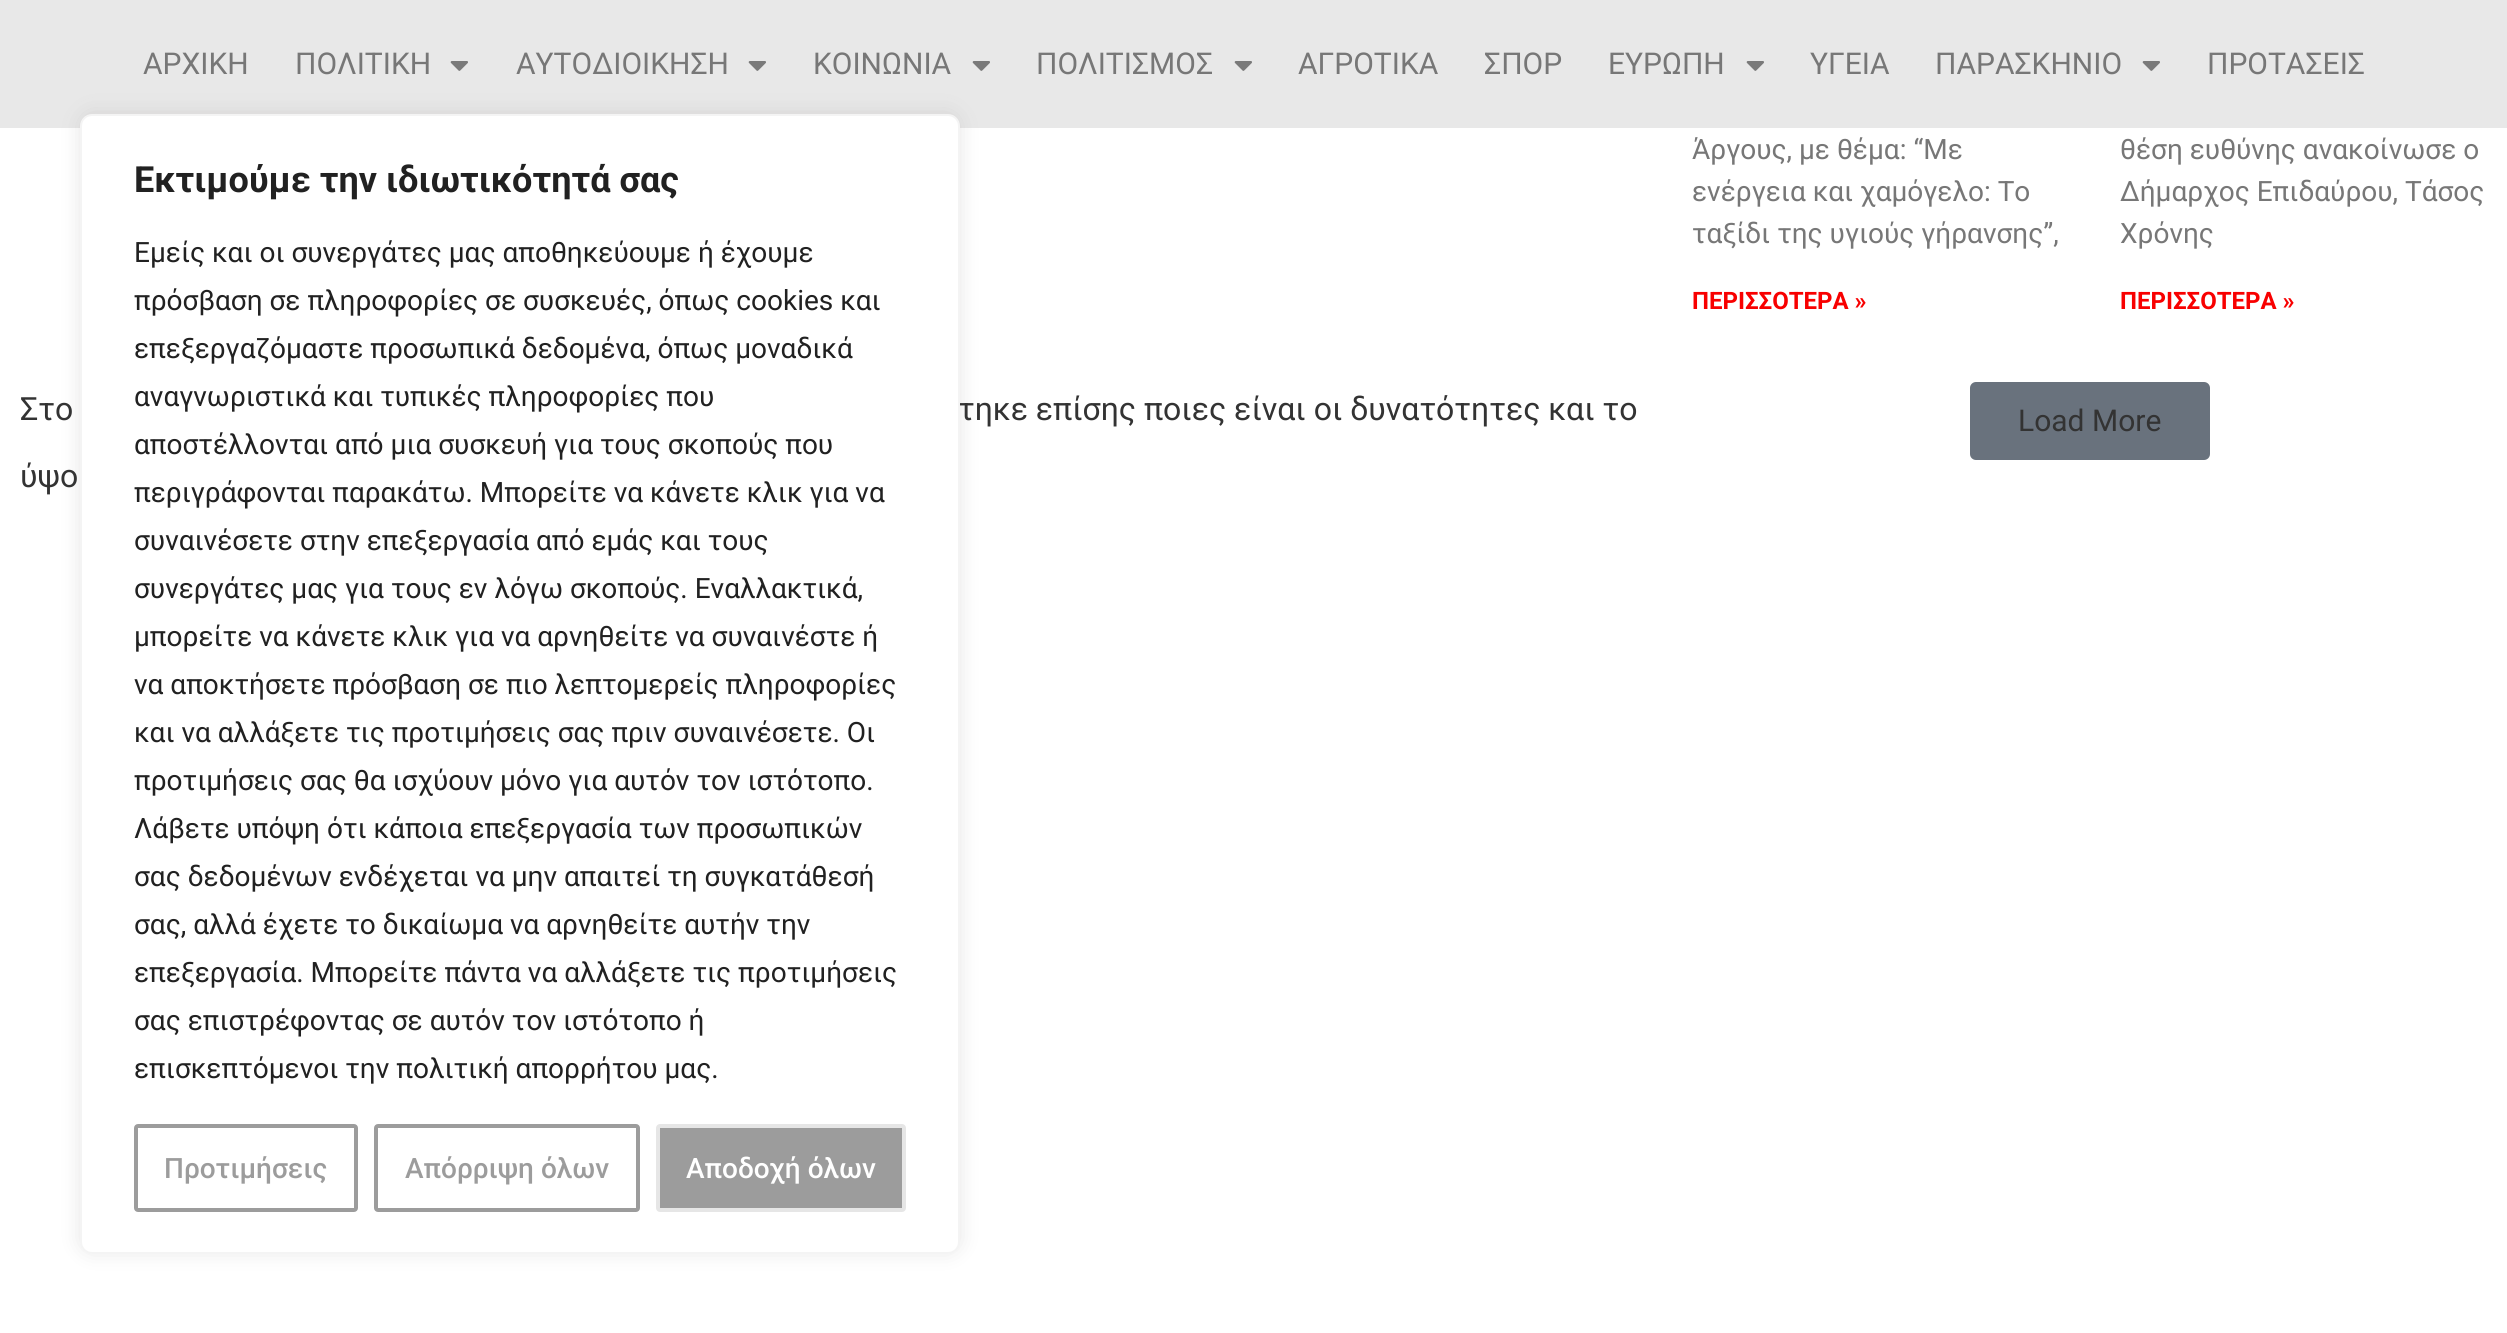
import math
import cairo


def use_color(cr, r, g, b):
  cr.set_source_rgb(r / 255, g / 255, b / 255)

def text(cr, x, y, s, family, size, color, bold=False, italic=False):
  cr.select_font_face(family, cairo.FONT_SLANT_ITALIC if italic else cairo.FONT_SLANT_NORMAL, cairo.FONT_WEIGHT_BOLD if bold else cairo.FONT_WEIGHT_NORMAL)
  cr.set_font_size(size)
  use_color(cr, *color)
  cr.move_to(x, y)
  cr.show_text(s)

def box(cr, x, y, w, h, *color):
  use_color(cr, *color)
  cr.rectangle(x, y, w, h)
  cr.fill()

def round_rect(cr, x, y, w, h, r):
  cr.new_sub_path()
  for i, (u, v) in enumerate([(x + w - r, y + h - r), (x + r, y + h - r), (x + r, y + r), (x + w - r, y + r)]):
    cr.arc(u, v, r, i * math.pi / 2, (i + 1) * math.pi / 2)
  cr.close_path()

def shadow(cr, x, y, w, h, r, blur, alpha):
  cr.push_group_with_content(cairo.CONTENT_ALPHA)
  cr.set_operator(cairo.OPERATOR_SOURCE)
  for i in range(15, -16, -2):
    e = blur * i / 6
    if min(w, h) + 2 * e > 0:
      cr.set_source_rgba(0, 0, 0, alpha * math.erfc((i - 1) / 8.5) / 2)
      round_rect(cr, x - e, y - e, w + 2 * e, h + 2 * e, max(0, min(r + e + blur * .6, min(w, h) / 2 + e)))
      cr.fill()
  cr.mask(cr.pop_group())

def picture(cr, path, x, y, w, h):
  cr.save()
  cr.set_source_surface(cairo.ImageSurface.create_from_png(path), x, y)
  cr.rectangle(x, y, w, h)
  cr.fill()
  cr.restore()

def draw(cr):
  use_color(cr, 255, 255, 255)
  cr.paint()
  box(cr, 0, 0, 2507, 128, 232, 232, 232)
  picture(cr, "img_01.png", 450, 61, 18, 10)
  picture(cr, "img_01.png", 748, 61, 18, 10)
  picture(cr, "img_01.png", 972, 61, 18, 10)
  picture(cr, "img_01.png", 1234, 61, 18, 10)
  picture(cr, "img_01.png", 1746, 61, 18, 10)
  picture(cr, "img_01.png", 2142, 61, 18, 10)
  use_color(cr, 105, 114, 125)
  round_rect(cr, 1970, 382, 240, 78, 6)
  cr.fill()
  use_color(cr, 172, 171, 171)
  shadow(cr, 80, 112, 880, 1140, 12, 10, 0.3)
  text(cr, 143, 74, "ΑΡΧΙΚΗ", "Roboto", 30, (119, 119, 119))
  text(cr, 295, 74, "ΠΟΛΙΤΙΚΗ", "Roboto", 30, (119, 119, 119))
  text(cr, 516, 74, "ΑΥΤΟΔΙΟΙΚΗΣΗ", "Roboto", 30, (119, 119, 119))
  text(cr, 813, 74, "ΚΟΙΝΩΝΙΑ", "Roboto", 30, (119, 119, 119))
  text(cr, 1036, 74, "ΠΟΛΙΤΙΣΜΟΣ", "Roboto", 30, (119, 119, 119))
  text(cr, 1298, 74, "ΑΓΡΟΤΙΚΑ", "Roboto", 30, (119, 119, 119))
  text(cr, 1484, 74, "ΣΠΟΡ", "Roboto", 30, (119, 119, 119))
  text(cr, 1608, 74, "ΕΥΡΩΠΗ", "Roboto", 30, (119, 119, 119))
  text(cr, 1810, 74, "ΥΓΕΙΑ", "Roboto", 30, (119, 119, 119))
  text(cr, 1935, 74, "ΠΑΡΑΣΚΗΝΙΟ", "Roboto", 30, (119, 119, 119))
  text(cr, 2207, 74, "ΠΡΟΤΑΣΕΙΣ", "Roboto", 30, (119, 119, 119))
  text(cr, 1692, 159, "Άργους, με θέμα: “Με", "Roboto", 28, (119, 119, 119))
  text(cr, 1692, 201, "ενέργεια και χαμόγελο: Το", "Roboto", 28, (119, 119, 119))
  text(cr, 1692, 243, "ταξίδι της υγιούς γήρανσης”,", "Roboto", 28, (119, 119, 119))
  text(cr, 1692, 309, "ΠΕΡΙΣΣΟΤΕΡΑ »", "Roboto", 24, (248, 0, 0), bold=True)
  text(cr, 2120, 159, "θέση ευθύνης ανακοίνωσε ο", "Roboto", 28, (119, 119, 119))
  text(cr, 2120, 201, "Δήμαρχος Επιδαύρου, Τάσος", "Roboto", 28, (119, 119, 119))
  text(cr, 2120, 243, "Χρόνης", "Roboto", 28, (119, 119, 119))
  text(cr, 2120, 309, "ΠΕΡΙΣΣΟΤΕΡΑ »", "Roboto", 24, (248, 0, 0), bold=True)
  text(cr, 2018, 431, "Load More", "Roboto", 30, (51, 51, 51))
  text(cr, 20, 420, "Στο", "Roboto", 32, (51, 51, 51))
  text(cr, 958, 420, "τηκε επίσης ποιες είναι οι δυνατότητες και το", "Roboto", 32, (51, 51, 51))
  text(cr, 20, 487, "ύψο", "Roboto", 32, (51, 51, 51))
  use_color(cr, 255, 255, 255)
  round_rect(cr, 81, 115, 878, 1138, 11)
  cr.fill_preserve()
  use_color(cr, 244, 244, 244)
  cr.stroke()
  text(cr, 134, 192, "Εκτιμούμε την ιδιωτικότητά σας", "Roboto", 36, (33, 33, 33), bold=True)
  text(cr, 134, 262, "Εμείς και οι συνεργάτες μας αποθηκεύουμε ή έχουμε", "Roboto", 28, (33, 33, 33))
  text(cr, 134, 310, "πρόσβαση σε πληροφορίες σε συσκευές, όπως cookies και", "Roboto", 28, (33, 33, 33))
  text(cr, 134, 358, "επεξεργαζόμαστε προσωπικά δεδομένα, όπως μοναδικά", "Roboto", 28, (33, 33, 33))
  text(cr, 134, 406, "αναγνωριστικά και τυπικές πληροφορίες που", "Roboto", 28, (33, 33, 33))
  text(cr, 134, 454, "αποστέλλονται από μια συσκευή για τους σκοπούς που", "Roboto", 28, (33, 33, 33))
  text(cr, 134, 502, "περιγράφονται παρακάτω. Μπορείτε να κάνετε κλικ για να", "Roboto", 28, (33, 33, 33))
  text(cr, 134, 550, "συναινέσετε στην επεξεργασία από εμάς και τους", "Roboto", 28, (33, 33, 33))
  text(cr, 134, 598, "συνεργάτες μας για τους εν λόγω σκοπούς. Εναλλακτικά,", "Roboto", 28, (33, 33, 33))
  text(cr, 134, 646, "μπορείτε να κάνετε κλικ για να αρνηθείτε να συναινέστε ή", "Roboto", 28, (33, 33, 33))
  text(cr, 134, 694, "να αποκτήσετε πρόσβαση σε πιο λεπτομερείς πληροφορίες", "Roboto", 28, (33, 33, 33))
  text(cr, 134, 742, "και να αλλάξετε τις προτιμήσεις σας πριν συναινέσετε. Οι", "Roboto", 28, (33, 33, 33))
  text(cr, 134, 790, "προτιμήσεις σας θα ισχύουν μόνο για αυτόν τον ιστότοπο.", "Roboto", 28, (33, 33, 33))
  text(cr, 134, 838, "Λάβετε υπόψη ότι κάποια επεξεργασία των προσωπικών", "Roboto", 28, (33, 33, 33))
  text(cr, 134, 886, "σας δεδομένων ενδέχεται να μην απαιτεί τη συγκατάθεσή", "Roboto", 28, (33, 33, 33))
  text(cr, 134, 934, "σας, αλλά έχετε το δικαίωμα να αρνηθείτε αυτήν την", "Roboto", 28, (33, 33, 33))
  text(cr, 134, 982, "επεξεργασία. Μπορείτε πάντα να αλλάξετε τις προτιμήσεις", "Roboto", 28, (33, 33, 33))
  text(cr, 134, 1030, "σας επιστρέφοντας σε αυτόν τον ιστότοπο ή", "Roboto", 28, (33, 33, 33))
  text(cr, 134, 1078, "επισκεπτόμενοι την πολιτική απορρήτου μας.", "Roboto", 28, (33, 33, 33))
  round_rect(cr, 136, 1126, 220, 84, 2)
  use_color(cr, 156, 156, 156)
  cr.set_line_width(4)
  cr.stroke()
  text(cr, 164, 1178, "Προτιμήσεις", "Roboto Medium", 28, (156, 156, 156))
  round_rect(cr, 376, 1126, 262, 84, 2)
  cr.stroke()
  text(cr, 405, 1178, "Απόρριψη όλων", "Roboto Medium", 28, (156, 156, 156))
  round_rect(cr, 658, 1126, 246, 84, 2)
  cr.fill_preserve()
  use_color(cr, 230, 230, 230)
  cr.stroke()
  text(cr, 686, 1178, "Αποδοχή όλων", "Roboto Medium", 28, (255, 255, 255))


surface = cairo.ImageSurface(cairo.FORMAT_RGB24, 2507, 1333)
cr = cairo.Context(surface)
options = cairo.FontOptions()
options.set_hint_metrics(cairo.HINT_METRICS_OFF)
options.set_hint_style(cairo.HINT_STYLE_NONE)
cr.set_font_options(options)
cr.set_miter_limit(4)
draw(cr)
surface.write_to_png("out.png")
